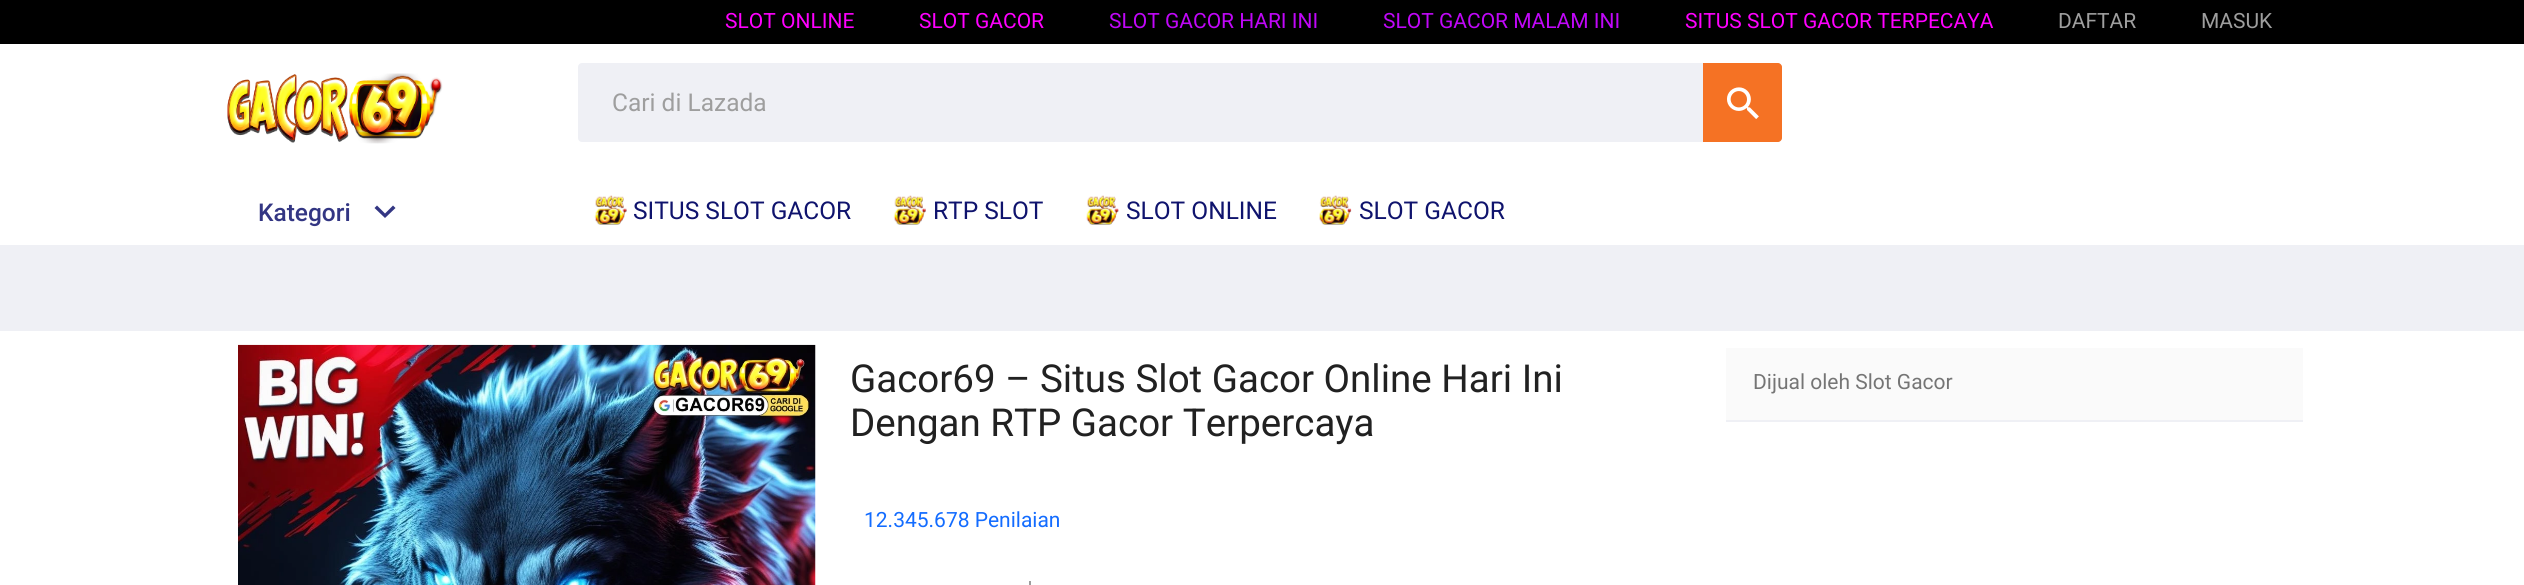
import math
import cairo


def use_color(cr, r, g, b):
  cr.set_source_rgb(r / 255, g / 255, b / 255)

def text(cr, x, y, s, family, size, color, bold=False, italic=False):
  cr.select_font_face(family, cairo.FONT_SLANT_ITALIC if italic else cairo.FONT_SLANT_NORMAL, cairo.FONT_WEIGHT_BOLD if bold else cairo.FONT_WEIGHT_NORMAL)
  cr.set_font_size(size)
  use_color(cr, *color)
  cr.move_to(x, y)
  cr.show_text(s)

def box(cr, x, y, w, h, *color):
  use_color(cr, *color)
  cr.rectangle(x, y, w, h)
  cr.fill()

def round_rect(cr, x, y, w, h, r):
  cr.new_sub_path()
  for i, (u, v) in enumerate([(x + w - r, y + h - r), (x + r, y + h - r), (x + r, y + r), (x + w - r, y + r)]):
    cr.arc(u, v, r, i * math.pi / 2, (i + 1) * math.pi / 2)
  cr.close_path()

def picture(cr, path, x, y, w, h):
  cr.save()
  cr.set_source_surface(cairo.ImageSurface.create_from_png(path), x, y)
  cr.rectangle(x, y, w, h)
  cr.fill()
  cr.restore()

def draw(cr):
  use_color(cr, 255, 255, 255)
  cr.paint()
  box(cr, 0, 0, 2524, 44, 0, 0, 0)
  picture(cr, "img_01.png", 227, 73, 216, 71)
  use_color(cr, 239, 240, 245)
  round_rect(cr, 578, 63, 1204, 79, 4)
  cr.fill()
  use_color(cr, 245, 114, 36)
  cr.new_path()
  cr.move_to(1703, 63)
  cr.line_to(1778, 63)
  cr.curve_to(1780, 63, 1782, 65, 1782, 67)
  cr.line_to(1782, 138)
  cr.curve_to(1782, 140, 1780, 142, 1778, 142)
  cr.line_to(1703, 142)
  cr.close_path()
  cr.fill()
  picture(cr, "img_02.png", 1727, 87, 32, 32)
  use_color(cr, 51, 54, 131)
  cr.new_path()
  cr.move_to(393, 205.5)
  cr.line_to(395.5, 208)
  cr.line_to(385, 218)
  cr.line_to(374.5, 208)
  cr.line_to(377, 205.5)
  cr.line_to(385, 213.5)
  cr.close_path()
  cr.fill()
  picture(cr, "img_03.png", 594, 195, 33, 30)
  picture(cr, "img_04.png", 893, 195, 33, 30)
  picture(cr, "img_05.png", 1086, 195, 33, 30)
  picture(cr, "img_06.png", 1319, 195, 33, 30)
  box(cr, 0, 245, 2524, 86, 239, 240, 245)
  picture(cr, "img_07.png", 238, 344, 578, 241)
  box(cr, 1029, 581, 2, 4, 158, 158, 158)
  box(cr, 1726, 348, 577, 72, 250, 250, 250)
  box(cr, 1726, 420, 577, 2, 239, 240, 245)
  text(cr, 725, 28, "SLOT ONLINE", "Roboto", 21, (255, 0, 255))
  text(cr, 919, 28, "SLOT GACOR", "Roboto", 21, (255, 0, 255))
  text(cr, 1109, 28, "SLOT GACOR HARI INI", "Roboto", 21, (192, 7, 248))
  text(cr, 1383, 28, "SLOT GACOR MALAM INI", "Roboto", 21, (192, 7, 248))
  text(cr, 1685, 28, "SITUS SLOT GACOR TERPECAYA", "Roboto", 21, (255, 0, 255))
  text(cr, 2058, 28, "DAFTAR", "Roboto", 21, (158, 158, 158))
  text(cr, 2201, 28, "MASUK", "Roboto", 21, (158, 158, 158))
  text(cr, 612, 111, "Cari di Lazada", "Roboto", 24.5, (158, 158, 158))
  text(cr, 258, 221, "Kategori", "Roboto Medium", 24.5, (51, 54, 131))
  text(cr, 633, 219, "SITUS SLOT GACOR", "Roboto", 24.5, (15, 19, 109))
  text(cr, 933, 219, "RTP SLOT", "Roboto", 24.5, (15, 19, 109))
  text(cr, 1126, 219, "SLOT ONLINE", "Roboto", 24.5, (15, 19, 109))
  text(cr, 1359, 219, "SLOT GACOR", "Roboto", 24.5, (15, 19, 109))
  text(cr, 850, 392, "Gacor69 – Situs Slot Gacor Online Hari Ini", "Roboto", 38.5, (33, 33, 33))
  text(cr, 850, 436, "Dengan RTP Gacor Terpercaya", "Roboto", 38.5, (33, 33, 33))
  text(cr, 864, 527, "12.345.678 Penilaian", "Roboto", 21, (19, 108, 255))
  text(cr, 1753, 389, "Dijual oleh Slot Gacor", "Roboto", 21, (117, 117, 117))


surface = cairo.ImageSurface(cairo.FORMAT_RGB24, 2524, 585)
cr = cairo.Context(surface)
options = cairo.FontOptions()
options.set_hint_metrics(cairo.HINT_METRICS_OFF)
options.set_hint_style(cairo.HINT_STYLE_NONE)
cr.set_font_options(options)
cr.set_miter_limit(4)
draw(cr)
surface.write_to_png("out.png")
